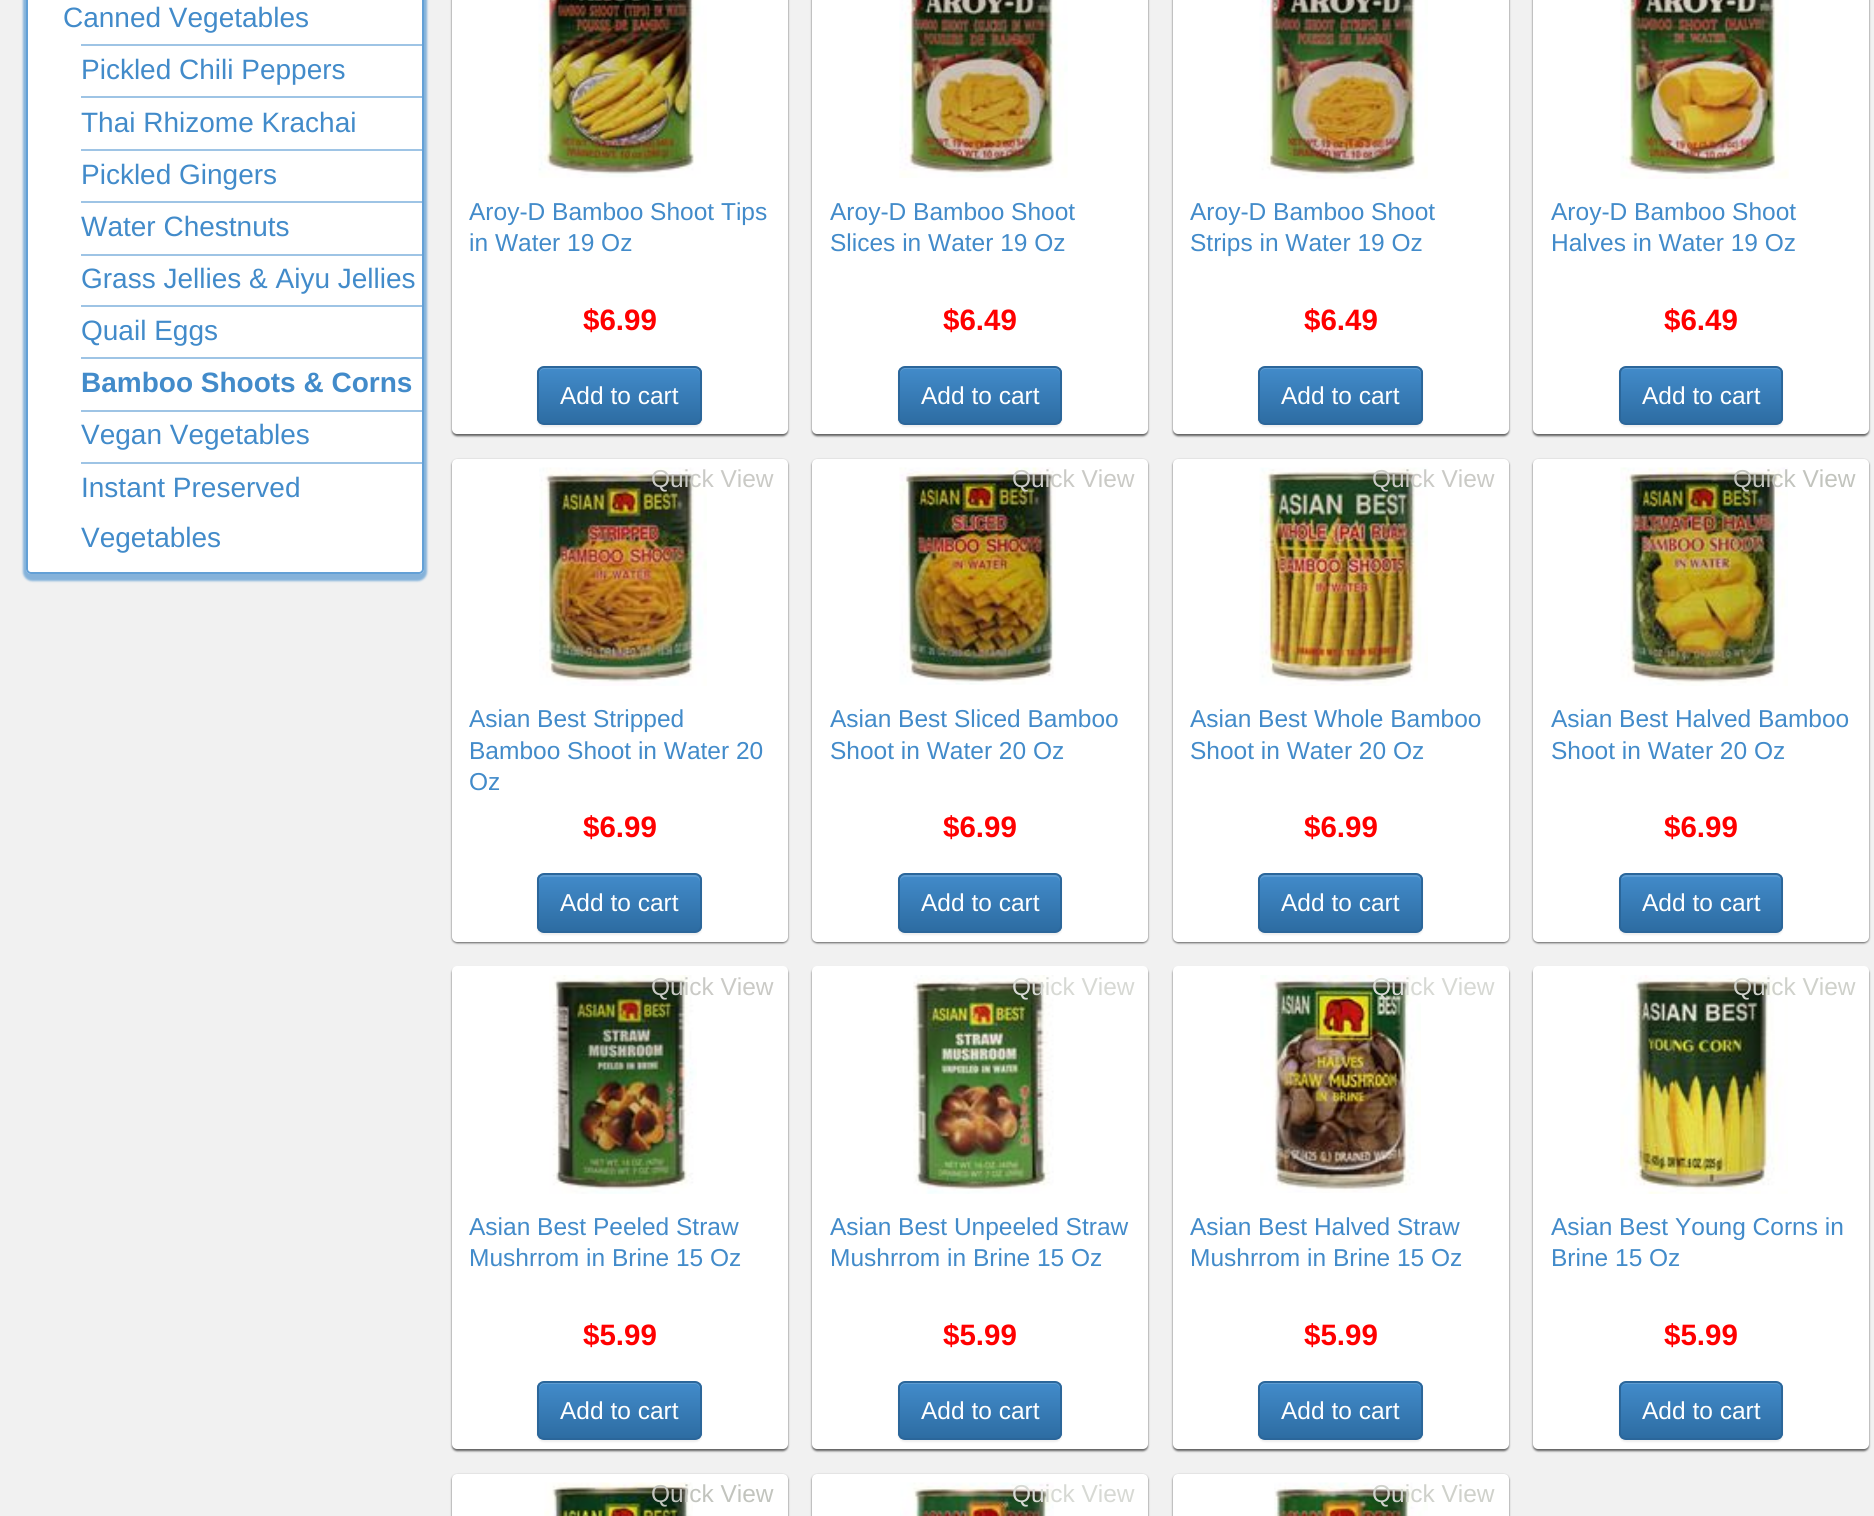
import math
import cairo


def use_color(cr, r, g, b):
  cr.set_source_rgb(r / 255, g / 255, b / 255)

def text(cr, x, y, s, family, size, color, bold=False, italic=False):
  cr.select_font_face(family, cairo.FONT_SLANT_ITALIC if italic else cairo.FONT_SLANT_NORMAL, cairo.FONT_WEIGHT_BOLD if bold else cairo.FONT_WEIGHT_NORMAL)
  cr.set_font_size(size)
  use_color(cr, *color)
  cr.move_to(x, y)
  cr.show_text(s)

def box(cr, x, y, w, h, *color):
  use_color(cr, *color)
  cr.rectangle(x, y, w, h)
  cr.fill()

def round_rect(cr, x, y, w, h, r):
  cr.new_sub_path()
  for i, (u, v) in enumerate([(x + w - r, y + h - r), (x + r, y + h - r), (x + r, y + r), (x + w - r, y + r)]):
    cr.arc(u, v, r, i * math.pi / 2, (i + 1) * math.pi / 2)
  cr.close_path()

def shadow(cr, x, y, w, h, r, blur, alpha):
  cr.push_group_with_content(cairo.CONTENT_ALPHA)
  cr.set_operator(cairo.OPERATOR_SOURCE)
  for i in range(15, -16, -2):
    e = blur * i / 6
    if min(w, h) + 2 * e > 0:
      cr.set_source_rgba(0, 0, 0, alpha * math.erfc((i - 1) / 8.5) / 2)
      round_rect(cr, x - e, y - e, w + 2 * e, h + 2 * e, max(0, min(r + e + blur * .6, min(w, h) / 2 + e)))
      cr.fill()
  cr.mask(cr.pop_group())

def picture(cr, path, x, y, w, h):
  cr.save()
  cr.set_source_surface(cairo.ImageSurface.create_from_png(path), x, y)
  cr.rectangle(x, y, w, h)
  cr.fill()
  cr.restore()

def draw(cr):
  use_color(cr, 241, 241, 241)
  cr.paint()
  use_color(cr, 61, 137, 203)
  shadow(cr, 23, -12, 404, 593, 9, 1, 0.6)
  use_color(cr, 255, 255, 255)
  round_rect(cr, 26, -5, 398, 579, 5)
  cr.fill()
  round_rect(cr, 27, -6, 396, 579, 4)
  cr.set_source_rgba(0.239, 0.537, 0.796, 0.8)
  cr.stroke()
  box(cr, 81, 44, 341, 2, 158, 196, 229)
  box(cr, 81, 96, 341, 2, 158, 196, 229)
  box(cr, 81, 149, 341, 2, 158, 196, 229)
  box(cr, 81, 201, 341, 2, 158, 196, 229)
  box(cr, 81, 254, 341, 2, 158, 196, 229)
  box(cr, 81, 305, 341, 2, 158, 196, 229)
  box(cr, 81, 357, 341, 2, 158, 196, 229)
  box(cr, 81, 410, 341, 2, 158, 196, 229)
  box(cr, 81, 462, 341, 2, 158, 196, 229)
  use_color(cr, 0, 0, 0)
  shadow(cr, 452, -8, 336, 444, 5, 1, 0.6)
  use_color(cr, 255, 255, 255)
  round_rect(cr, 452, -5, 336, 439, 5)
  cr.fill()
  picture(cr, "img_01.png", 538, 0, 169, 178)
  use_color(cr, 0, 0, 0)
  shadow(cr, 537, 368, 165, 59, 7, 1, 0.07)
  cr.save()
  round_rect(cr, 537, 366, 165, 59, 7)
  cr.clip()
  gradient = cairo.LinearGradient(620, 368, 620, 424)
  gradient.add_color_stop_rgba(0, 0.259, 0.545, 0.792, 1)
  gradient.add_color_stop_rgba(1, 0.176, 0.424, 0.635, 1)
  cr.set_source(gradient)
  cr.rectangle(537, 368, 165, 56)
  cr.fill()
  cr.restore()
  use_color(cr, 94, 156, 210)
  cr.new_path()
  cr.move_to(544, 369)
  cr.line_to(695, 369)
  cr.curve_to(698, 369, 700, 372, 700, 374)
  cr.line_to(700, 373)
  cr.curve_to(700, 370, 698, 368, 695, 368)
  cr.line_to(544, 368)
  cr.curve_to(541, 368, 539, 370, 539, 373)
  cr.line_to(539, 374)
  cr.curve_to(539, 372, 541, 369, 544, 369)
  cr.close_path()
  cr.fill()
  round_rect(cr, 538, 367, 163, 57, 6)
  use_color(cr, 43, 102, 154)
  cr.stroke()
  use_color(cr, 0, 0, 0)
  shadow(cr, 812, -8, 336, 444, 5, 1, 0.6)
  use_color(cr, 255, 255, 255)
  round_rect(cr, 812, -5, 336, 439, 5)
  cr.fill()
  picture(cr, "img_02.png", 899, 0, 169, 178)
  use_color(cr, 0, 0, 0)
  shadow(cr, 898, 368, 164, 59, 7, 1, 0.07)
  cr.save()
  round_rect(cr, 898, 366, 164, 59, 7)
  cr.clip()
  gradient = cairo.LinearGradient(980, 368, 980, 424)
  gradient.add_color_stop_rgba(0, 0.259, 0.545, 0.792, 1)
  gradient.add_color_stop_rgba(1, 0.176, 0.424, 0.635, 1)
  cr.set_source(gradient)
  cr.rectangle(898, 368, 164, 56)
  cr.fill()
  cr.restore()
  cr.set_source_rgba(1, 1, 1, 0.15)
  cr.new_path()
  cr.move_to(905, 369)
  cr.line_to(1055, 369)
  cr.curve_to(1058, 369, 1060, 372, 1060, 374)
  cr.line_to(1060, 420)
  cr.line_to(1059, 423)
  cr.curve_to(1060, 422, 1061, 420, 1061, 419)
  cr.line_to(1061, 373)
  cr.curve_to(1061, 370, 1059, 368, 1056, 368)
  cr.line_to(905, 368)
  cr.curve_to(902, 368, 900, 370, 900, 373)
  cr.line_to(900, 374)
  cr.curve_to(900, 372, 902, 369, 905, 369)
  cr.close_path()
  cr.fill()
  round_rect(cr, 899, 367, 162, 57, 6)
  use_color(cr, 43, 102, 154)
  cr.stroke()
  use_color(cr, 0, 0, 0)
  shadow(cr, 1173, -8, 336, 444, 5, 1, 0.6)
  use_color(cr, 255, 255, 255)
  round_rect(cr, 1173, -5, 336, 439, 5)
  cr.fill()
  picture(cr, "img_03.png", 1259, 0, 169, 179)
  use_color(cr, 0, 0, 0)
  shadow(cr, 1258, 368, 165, 59, 7, 1, 0.07)
  cr.save()
  round_rect(cr, 1258, 366, 165, 59, 7)
  cr.clip()
  gradient = cairo.LinearGradient(1341, 368, 1341, 424)
  gradient.add_color_stop_rgba(0, 0.259, 0.545, 0.792, 1)
  gradient.add_color_stop_rgba(1, 0.176, 0.424, 0.635, 1)
  cr.set_source(gradient)
  cr.rectangle(1258, 368, 165, 56)
  cr.fill()
  cr.restore()
  use_color(cr, 94, 156, 210)
  cr.new_path()
  cr.move_to(1265, 369)
  cr.line_to(1416, 369)
  cr.curve_to(1419, 369, 1421, 372, 1421, 374)
  cr.line_to(1421, 373)
  cr.curve_to(1421, 370, 1419, 368, 1416, 368)
  cr.line_to(1265, 368)
  cr.curve_to(1262, 368, 1260, 370, 1260, 373)
  cr.line_to(1260, 374)
  cr.curve_to(1260, 372, 1262, 369, 1265, 369)
  cr.close_path()
  cr.fill()
  round_rect(cr, 1259, 367, 163, 57, 6)
  use_color(cr, 43, 102, 154)
  cr.stroke()
  use_color(cr, 0, 0, 0)
  shadow(cr, 1533, -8, 336, 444, 5, 1, 0.6)
  use_color(cr, 255, 255, 255)
  round_rect(cr, 1533, -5, 336, 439, 5)
  cr.fill()
  picture(cr, "img_04.png", 1620, 0, 169, 179)
  use_color(cr, 0, 0, 0)
  shadow(cr, 1619, 368, 164, 59, 7, 1, 0.07)
  cr.save()
  round_rect(cr, 1619, 366, 164, 59, 7)
  cr.clip()
  gradient = cairo.LinearGradient(1701, 368, 1701, 424)
  gradient.add_color_stop_rgba(0, 0.259, 0.545, 0.792, 1)
  gradient.add_color_stop_rgba(1, 0.176, 0.424, 0.635, 1)
  cr.set_source(gradient)
  cr.rectangle(1619, 368, 164, 56)
  cr.fill()
  cr.restore()
  use_color(cr, 94, 156, 210)
  cr.new_path()
  cr.move_to(1626, 369)
  cr.line_to(1776, 369)
  cr.curve_to(1779, 369, 1782, 372, 1782, 374)
  cr.line_to(1782, 373)
  cr.curve_to(1782, 370, 1780, 368, 1777, 368)
  cr.line_to(1626, 368)
  cr.curve_to(1624, 368, 1622, 369, 1621, 371)
  cr.curve_to(1622, 370, 1624, 369, 1626, 369)
  cr.close_path()
  cr.fill()
  round_rect(cr, 1620, 367, 162, 57, 6)
  use_color(cr, 43, 102, 154)
  cr.stroke()
  use_color(cr, 0, 0, 0)
  shadow(cr, 452, 460, 336, 483, 5, 1, 0.6)
  use_color(cr, 255, 255, 255)
  round_rect(cr, 452, 459, 336, 483, 5)
  cr.fill()
  picture(cr, "img_05.png", 539, 467, 168, 219)
  use_color(cr, 0, 0, 0)
  shadow(cr, 537, 875, 165, 60, 7, 1, 0.07)
  cr.save()
  round_rect(cr, 537, 873, 165, 60, 7)
  cr.clip()
  gradient = cairo.LinearGradient(620, 875, 620, 931)
  gradient.add_color_stop_rgba(0, 0.259, 0.545, 0.792, 1)
  gradient.add_color_stop_rgba(1, 0.176, 0.424, 0.635, 1)
  cr.set_source(gradient)
  cr.rectangle(537, 875, 165, 56)
  cr.fill()
  cr.restore()
  cr.set_source_rgba(1, 1, 1, 0.15)
  cr.new_path()
  cr.move_to(544, 877)
  cr.line_to(695, 877)
  cr.curve_to(698, 877, 700, 879, 700, 882)
  cr.line_to(700, 880)
  cr.curve_to(700, 877, 698, 875, 695, 875)
  cr.line_to(544, 875)
  cr.curve_to(541, 875, 539, 877, 539, 880)
  cr.line_to(539, 882)
  cr.curve_to(539, 879, 541, 877, 544, 877)
  cr.close_path()
  cr.fill()
  round_rect(cr, 538, 874, 163, 58, 6)
  use_color(cr, 43, 102, 154)
  cr.stroke()
  use_color(cr, 0, 0, 0)
  shadow(cr, 812, 460, 336, 483, 5, 1, 0.6)
  use_color(cr, 255, 255, 255)
  round_rect(cr, 812, 459, 336, 483, 5)
  cr.fill()
  picture(cr, "img_06.png", 899, 467, 157, 218)
  use_color(cr, 0, 0, 0)
  shadow(cr, 898, 875, 164, 60, 7, 1, 0.07)
  cr.save()
  round_rect(cr, 898, 873, 164, 60, 7)
  cr.clip()
  gradient = cairo.LinearGradient(980, 875, 980, 931)
  gradient.add_color_stop_rgba(0, 0.259, 0.545, 0.792, 1)
  gradient.add_color_stop_rgba(1, 0.176, 0.424, 0.635, 1)
  cr.set_source(gradient)
  cr.rectangle(898, 875, 164, 56)
  cr.fill()
  cr.restore()
  cr.set_source_rgba(1, 1, 1, 0.15)
  cr.new_path()
  cr.move_to(905, 877)
  cr.line_to(1055, 877)
  cr.curve_to(1062, 877, 1060, 886, 1060, 890)
  cr.line_to(1060, 929)
  cr.curve_to(1061, 928, 1061, 927, 1061, 926)
  cr.line_to(1061, 880)
  cr.curve_to(1061, 877, 1059, 875, 1056, 875)
  cr.line_to(905, 875)
  cr.curve_to(902, 875, 900, 877, 900, 880)
  cr.line_to(900, 882)
  cr.curve_to(900, 879, 902, 877, 905, 877)
  cr.close_path()
  cr.fill()
  round_rect(cr, 899, 874, 162, 58, 6)
  use_color(cr, 43, 102, 154)
  cr.stroke()
  use_color(cr, 0, 0, 0)
  shadow(cr, 1173, 460, 336, 483, 5, 1, 0.6)
  use_color(cr, 255, 255, 255)
  round_rect(cr, 1173, 459, 336, 483, 5)
  cr.fill()
  picture(cr, "img_07.png", 1259, 467, 169, 219)
  use_color(cr, 0, 0, 0)
  shadow(cr, 1258, 875, 165, 60, 7, 1, 0.07)
  cr.save()
  round_rect(cr, 1258, 873, 165, 60, 7)
  cr.clip()
  gradient = cairo.LinearGradient(1341, 875, 1341, 931)
  gradient.add_color_stop_rgba(0, 0.259, 0.545, 0.792, 1)
  gradient.add_color_stop_rgba(1, 0.176, 0.424, 0.635, 1)
  cr.set_source(gradient)
  cr.rectangle(1258, 875, 165, 56)
  cr.fill()
  cr.restore()
  cr.set_source_rgba(1, 1, 1, 0.15)
  cr.new_path()
  cr.move_to(1265, 877)
  cr.line_to(1416, 877)
  cr.curve_to(1419, 877, 1421, 879, 1421, 882)
  cr.line_to(1421, 880)
  cr.curve_to(1421, 877, 1419, 875, 1416, 875)
  cr.line_to(1265, 875)
  cr.curve_to(1262, 875, 1260, 877, 1260, 880)
  cr.line_to(1260, 882)
  cr.curve_to(1260, 879, 1262, 877, 1265, 877)
  cr.close_path()
  cr.fill()
  round_rect(cr, 1259, 874, 163, 58, 6)
  use_color(cr, 43, 102, 154)
  cr.stroke()
  use_color(cr, 0, 0, 0)
  shadow(cr, 1533, 460, 336, 483, 5, 1, 0.6)
  use_color(cr, 255, 255, 255)
  round_rect(cr, 1533, 459, 336, 483, 5)
  cr.fill()
  picture(cr, "img_08.png", 1620, 467, 168, 219)
  use_color(cr, 0, 0, 0)
  shadow(cr, 1619, 875, 164, 60, 7, 1, 0.07)
  cr.save()
  round_rect(cr, 1619, 873, 164, 60, 7)
  cr.clip()
  gradient = cairo.LinearGradient(1701, 875, 1701, 931)
  gradient.add_color_stop_rgba(0, 0.259, 0.545, 0.792, 1)
  gradient.add_color_stop_rgba(1, 0.176, 0.424, 0.635, 1)
  cr.set_source(gradient)
  cr.rectangle(1619, 875, 164, 56)
  cr.fill()
  cr.restore()
  cr.set_source_rgba(1, 1, 1, 0.15)
  cr.new_path()
  cr.move_to(1626, 877)
  cr.line_to(1776, 877)
  cr.curve_to(1779, 877, 1782, 879, 1782, 882)
  cr.line_to(1782, 880)
  cr.curve_to(1782, 877, 1780, 875, 1777, 875)
  cr.line_to(1626, 875)
  cr.curve_to(1624, 875, 1621, 877, 1621, 879)
  cr.curve_to(1622, 878, 1624, 877, 1626, 877)
  cr.close_path()
  cr.fill()
  round_rect(cr, 1620, 874, 162, 58, 6)
  use_color(cr, 43, 102, 154)
  cr.stroke()
  use_color(cr, 0, 0, 0)
  shadow(cr, 452, 968, 336, 483, 5, 1, 0.6)
  use_color(cr, 255, 255, 255)
  round_rect(cr, 452, 966, 336, 483, 5)
  cr.fill()
  picture(cr, "img_09.png", 549, 975, 148, 219)
  use_color(cr, 0, 0, 0)
  shadow(cr, 537, 1383, 165, 59, 7, 1, 0.07)
  cr.save()
  round_rect(cr, 537, 1381, 165, 59, 7)
  cr.clip()
  gradient = cairo.LinearGradient(620, 1383, 620, 1439)
  gradient.add_color_stop_rgba(0, 0.259, 0.545, 0.792, 1)
  gradient.add_color_stop_rgba(1, 0.176, 0.424, 0.635, 1)
  cr.set_source(gradient)
  cr.rectangle(537, 1383, 165, 56)
  cr.fill()
  cr.restore()
  use_color(cr, 94, 156, 210)
  cr.new_path()
  cr.move_to(544, 1384)
  cr.line_to(695, 1384)
  cr.curve_to(698, 1384, 700, 1387, 700, 1390)
  cr.line_to(700, 1388)
  cr.curve_to(700, 1385, 698, 1383, 695, 1383)
  cr.line_to(544, 1383)
  cr.curve_to(541, 1383, 539, 1385, 539, 1388)
  cr.line_to(539, 1390)
  cr.curve_to(539, 1387, 541, 1384, 544, 1384)
  cr.close_path()
  cr.fill()
  round_rect(cr, 538, 1382, 163, 57, 6)
  use_color(cr, 43, 102, 154)
  cr.stroke()
  use_color(cr, 0, 0, 0)
  shadow(cr, 812, 968, 336, 483, 5, 1, 0.6)
  use_color(cr, 255, 255, 255)
  round_rect(cr, 812, 966, 336, 483, 5)
  cr.fill()
  picture(cr, "img_10.png", 913, 975, 141, 219)
  use_color(cr, 0, 0, 0)
  shadow(cr, 898, 1383, 164, 59, 7, 1, 0.07)
  cr.save()
  round_rect(cr, 898, 1381, 164, 59, 7)
  cr.clip()
  gradient = cairo.LinearGradient(980, 1383, 980, 1439)
  gradient.add_color_stop_rgba(0, 0.259, 0.545, 0.792, 1)
  gradient.add_color_stop_rgba(1, 0.176, 0.424, 0.635, 1)
  cr.set_source(gradient)
  cr.rectangle(898, 1383, 164, 56)
  cr.fill()
  cr.restore()
  cr.set_source_rgba(1, 1, 1, 0.15)
  cr.new_path()
  cr.move_to(905, 1384)
  cr.line_to(1055, 1384)
  cr.curve_to(1058, 1384, 1060, 1387, 1060, 1390)
  cr.line_to(1060, 1435)
  cr.line_to(1059, 1438)
  cr.curve_to(1060, 1437, 1061, 1435, 1061, 1434)
  cr.line_to(1061, 1388)
  cr.curve_to(1061, 1385, 1059, 1383, 1056, 1383)
  cr.line_to(905, 1383)
  cr.curve_to(902, 1383, 900, 1385, 900, 1388)
  cr.line_to(900, 1390)
  cr.curve_to(900, 1387, 902, 1384, 905, 1384)
  cr.close_path()
  cr.fill()
  round_rect(cr, 899, 1382, 162, 57, 6)
  use_color(cr, 43, 102, 154)
  cr.stroke()
  use_color(cr, 0, 0, 0)
  shadow(cr, 1173, 968, 336, 483, 5, 1, 0.6)
  use_color(cr, 255, 255, 255)
  round_rect(cr, 1173, 966, 336, 483, 5)
  cr.fill()
  picture(cr, "img_11.png", 1260, 975, 161, 218)
  use_color(cr, 0, 0, 0)
  shadow(cr, 1258, 1383, 165, 59, 7, 1, 0.07)
  cr.save()
  round_rect(cr, 1258, 1381, 165, 59, 7)
  cr.clip()
  gradient = cairo.LinearGradient(1341, 1383, 1341, 1439)
  gradient.add_color_stop_rgba(0, 0.259, 0.545, 0.792, 1)
  gradient.add_color_stop_rgba(1, 0.176, 0.424, 0.635, 1)
  cr.set_source(gradient)
  cr.rectangle(1258, 1383, 165, 56)
  cr.fill()
  cr.restore()
  use_color(cr, 94, 156, 210)
  cr.new_path()
  cr.move_to(1265, 1384)
  cr.line_to(1416, 1384)
  cr.curve_to(1419, 1384, 1421, 1387, 1421, 1390)
  cr.line_to(1421, 1388)
  cr.curve_to(1421, 1385, 1419, 1383, 1416, 1383)
  cr.line_to(1265, 1383)
  cr.curve_to(1262, 1383, 1260, 1385, 1260, 1388)
  cr.line_to(1260, 1390)
  cr.curve_to(1260, 1387, 1262, 1384, 1265, 1384)
  cr.close_path()
  cr.fill()
  round_rect(cr, 1259, 1382, 163, 57, 6)
  use_color(cr, 43, 102, 154)
  cr.stroke()
  use_color(cr, 0, 0, 0)
  shadow(cr, 1533, 968, 336, 483, 5, 1, 0.6)
  use_color(cr, 255, 255, 255)
  round_rect(cr, 1533, 966, 336, 483, 5)
  cr.fill()
  picture(cr, "img_12.png", 1620, 975, 168, 219)
  use_color(cr, 0, 0, 0)
  shadow(cr, 1619, 1383, 164, 59, 7, 1, 0.07)
  cr.save()
  round_rect(cr, 1619, 1381, 164, 59, 7)
  cr.clip()
  gradient = cairo.LinearGradient(1701, 1383, 1701, 1439)
  gradient.add_color_stop_rgba(0, 0.259, 0.545, 0.792, 1)
  gradient.add_color_stop_rgba(1, 0.176, 0.424, 0.635, 1)
  cr.set_source(gradient)
  cr.rectangle(1619, 1383, 164, 56)
  cr.fill()
  cr.restore()
  cr.set_source_rgba(1, 1, 1, 0.15)
  cr.new_path()
  cr.move_to(1626, 1384)
  cr.line_to(1776, 1384)
  cr.curve_to(1779, 1384, 1782, 1387, 1782, 1390)
  cr.line_to(1782, 1388)
  cr.curve_to(1782, 1385, 1780, 1383, 1777, 1383)
  cr.line_to(1626, 1383)
  cr.curve_to(1624, 1383, 1622, 1385, 1621, 1387)
  cr.curve_to(1622, 1385, 1624, 1384, 1626, 1384)
  cr.close_path()
  cr.fill()
  round_rect(cr, 1620, 1382, 162, 57, 6)
  use_color(cr, 43, 102, 154)
  cr.stroke()
  use_color(cr, 0, 0, 0)
  shadow(cr, 452, 1475, 336, 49, 5, 1, 0.6)
  use_color(cr, 255, 255, 255)
  round_rect(cr, 452, 1474, 336, 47, 5)
  cr.fill()
  picture(cr, "img_13.png", 544, 1482, 149, 34)
  use_color(cr, 0, 0, 0)
  shadow(cr, 812, 1475, 336, 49, 5, 1, 0.6)
  use_color(cr, 255, 255, 255)
  round_rect(cr, 812, 1474, 336, 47, 5)
  cr.fill()
  picture(cr, "img_14.png", 900, 1482, 154, 34)
  use_color(cr, 0, 0, 0)
  shadow(cr, 1173, 1475, 336, 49, 5, 1, 0.6)
  use_color(cr, 255, 255, 255)
  round_rect(cr, 1173, 1474, 336, 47, 5)
  cr.fill()
  picture(cr, "img_15.png", 1274, 1482, 154, 34)
  text(cr, 63, 27, "Canned Vegetables", "Liberation Sans", 28, (66, 139, 202))
  text(cr, 81, 79, "Pickled Chili Peppers", "Liberation Sans", 28, (66, 139, 202))
  text(cr, 81, 132, "Thai Rhizome Krachai", "Liberation Sans", 28, (66, 139, 202))
  text(cr, 81, 184, "Pickled Gingers", "Liberation Sans", 28, (66, 139, 202))
  text(cr, 81, 236, "Water Chestnuts", "Liberation Sans", 28, (66, 139, 202))
  text(cr, 81, 288, "Grass Jellies & Aiyu Jellies", "Liberation Sans", 28, (66, 139, 202))
  text(cr, 81, 340, "Quail Eggs", "Liberation Sans", 28, (66, 139, 202))
  text(cr, 81, 392, "Bamboo Shoots & Corns", "Liberation Sans", 28, (66, 139, 202), bold=True)
  text(cr, 81, 444, "Vegan Vegetables", "Liberation Sans", 28, (66, 139, 202))
  text(cr, 81, 497, "Instant Preserved", "Liberation Sans", 28, (66, 139, 202))
  text(cr, 81, 547, "Vegetables", "Liberation Sans", 28, (66, 139, 202))
  text(cr, 469, 220, "Aroy-D Bamboo Shoot Tips", "Liberation Sans", 24.5, (66, 139, 202))
  text(cr, 469, 251, "in Water 19 Oz", "Liberation Sans", 24.5, (66, 139, 202))
  text(cr, 583, 330, "$6.99", "Liberation Sans", 29.5, (255, 0, 0), bold=True)
  text(cr, 560, 404, "Add to cart", "Liberation Sans", 24.5, (255, 255, 255))
  text(cr, 830, 220, "Aroy-D Bamboo Shoot", "Liberation Sans", 24.5, (66, 139, 202))
  text(cr, 830, 251, "Slices in Water 19 Oz", "Liberation Sans", 24.5, (66, 139, 202))
  text(cr, 943, 330, "$6.49", "Liberation Sans", 29.5, (255, 0, 0), bold=True)
  text(cr, 921, 404, "Add to cart", "Liberation Sans", 24.5, (255, 255, 255))
  text(cr, 1190, 220, "Aroy-D Bamboo Shoot", "Liberation Sans", 24.5, (66, 139, 202))
  text(cr, 1190, 251, "Strips in Water 19 Oz", "Liberation Sans", 24.5, (66, 139, 202))
  text(cr, 1304, 330, "$6.49", "Liberation Sans", 29.5, (255, 0, 0), bold=True)
  text(cr, 1281, 404, "Add to cart", "Liberation Sans", 24.5, (255, 255, 255))
  text(cr, 1551, 220, "Aroy-D Bamboo Shoot", "Liberation Sans", 24.5, (66, 139, 202))
  text(cr, 1551, 251, "Halves in Water 19 Oz", "Liberation Sans", 24.5, (66, 139, 202))
  text(cr, 1664, 330, "$6.49", "Liberation Sans", 29.5, (255, 0, 0), bold=True)
  text(cr, 1642, 404, "Add to cart", "Liberation Sans", 24.5, (255, 255, 255))
  text(cr, 651, 487, "Quick View", "Liberation Sans", 24.5, (202, 202, 198))
  text(cr, 469, 727, "Asian Best Stripped", "Liberation Sans", 24.5, (66, 139, 202))
  text(cr, 469, 759, "Bamboo Shoot in Water 20", "Liberation Sans", 24.5, (66, 139, 202))
  text(cr, 469, 790, "Oz", "Liberation Sans", 24.5, (66, 139, 202))
  text(cr, 583, 837, "$6.99", "Liberation Sans", 29.5, (255, 0, 0), bold=True)
  text(cr, 560, 911, "Add to cart", "Liberation Sans", 24.5, (255, 255, 255))
  text(cr, 1012, 487, "Quick View", "Liberation Sans", 24.5, (202, 202, 198))
  text(cr, 830, 727, "Asian Best Sliced Bamboo", "Liberation Sans", 24.5, (66, 139, 202))
  text(cr, 830, 759, "Shoot in Water 20 Oz", "Liberation Sans", 24.5, (66, 139, 202))
  text(cr, 943, 837, "$6.99", "Liberation Sans", 29.5, (255, 0, 0), bold=True)
  text(cr, 921, 911, "Add to cart", "Liberation Sans", 24.5, (255, 255, 255))
  text(cr, 1372, 487, "Quick View", "Liberation Sans", 24.5, (202, 202, 198))
  text(cr, 1190, 727, "Asian Best Whole Bamboo", "Liberation Sans", 24.5, (66, 139, 202))
  text(cr, 1190, 759, "Shoot in Water 20 Oz", "Liberation Sans", 24.5, (66, 139, 202))
  text(cr, 1304, 837, "$6.99", "Liberation Sans", 29.5, (255, 0, 0), bold=True)
  text(cr, 1281, 911, "Add to cart", "Liberation Sans", 24.5, (255, 255, 255))
  text(cr, 1733, 487, "Quick View", "Liberation Sans", 24.5, (194, 196, 190))
  text(cr, 1551, 727, "Asian Best Halved Bamboo", "Liberation Sans", 24.5, (66, 139, 202))
  text(cr, 1551, 759, "Shoot in Water 20 Oz", "Liberation Sans", 24.5, (66, 139, 202))
  text(cr, 1664, 837, "$6.99", "Liberation Sans", 29.5, (255, 0, 0), bold=True)
  text(cr, 1642, 911, "Add to cart", "Liberation Sans", 24.5, (255, 255, 255))
  text(cr, 651, 995, "Quick View", "Liberation Sans", 24.5, (202, 202, 198))
  text(cr, 469, 1235, "Asian Best Peeled Straw", "Liberation Sans", 24.5, (66, 139, 202))
  text(cr, 469, 1266, "Mushrrom in Brine 15 Oz", "Liberation Sans", 24.5, (66, 139, 202))
  text(cr, 583, 1345, "$5.99", "Liberation Sans", 29.5, (255, 0, 0), bold=True)
  text(cr, 560, 1419, "Add to cart", "Liberation Sans", 24.5, (255, 255, 255))
  text(cr, 1012, 995, "Quick View", "Liberation Sans", 24.5, (215, 217, 212))
  text(cr, 830, 1235, "Asian Best Unpeeled Straw", "Liberation Sans", 24.5, (66, 139, 202))
  text(cr, 830, 1266, "Mushrrom in Brine 15 Oz", "Liberation Sans", 24.5, (66, 139, 202))
  text(cr, 943, 1345, "$5.99", "Liberation Sans", 29.5, (255, 0, 0), bold=True)
  text(cr, 921, 1419, "Add to cart", "Liberation Sans", 24.5, (255, 255, 255))
  text(cr, 1372, 995, "Quick View", "Liberation Sans", 24.5, (215, 217, 212))
  text(cr, 1190, 1235, "Asian Best Halved Straw", "Liberation Sans", 24.5, (66, 139, 202))
  text(cr, 1190, 1266, "Mushrrom in Brine 15 Oz", "Liberation Sans", 24.5, (66, 139, 202))
  text(cr, 1304, 1345, "$5.99", "Liberation Sans", 29.5, (255, 0, 0), bold=True)
  text(cr, 1281, 1419, "Add to cart", "Liberation Sans", 24.5, (255, 255, 255))
  text(cr, 1733, 995, "Quick View", "Liberation Sans", 24.5, (207, 209, 203))
  text(cr, 1551, 1235, "Asian Best Young Corns in", "Liberation Sans", 24.5, (66, 139, 202))
  text(cr, 1551, 1266, "Brine 15 Oz", "Liberation Sans", 24.5, (66, 139, 202))
  text(cr, 1664, 1345, "$5.99", "Liberation Sans", 29.5, (255, 0, 0), bold=True)
  text(cr, 1642, 1419, "Add to cart", "Liberation Sans", 24.5, (255, 255, 255))
  text(cr, 651, 1502, "Quick View", "Liberation Sans", 24.5, (194, 196, 190))
  text(cr, 1012, 1502, "Quick View", "Liberation Sans", 24.5, (215, 217, 212))
  text(cr, 1372, 1502, "Quick View", "Liberation Sans", 24.5, (207, 209, 203))


surface = cairo.ImageSurface(cairo.FORMAT_RGB24, 1874, 1516)
cr = cairo.Context(surface)
options = cairo.FontOptions()
options.set_hint_metrics(cairo.HINT_METRICS_OFF)
options.set_hint_style(cairo.HINT_STYLE_NONE)
cr.set_font_options(options)
cr.set_miter_limit(4)
draw(cr)
surface.write_to_png("out.png")
